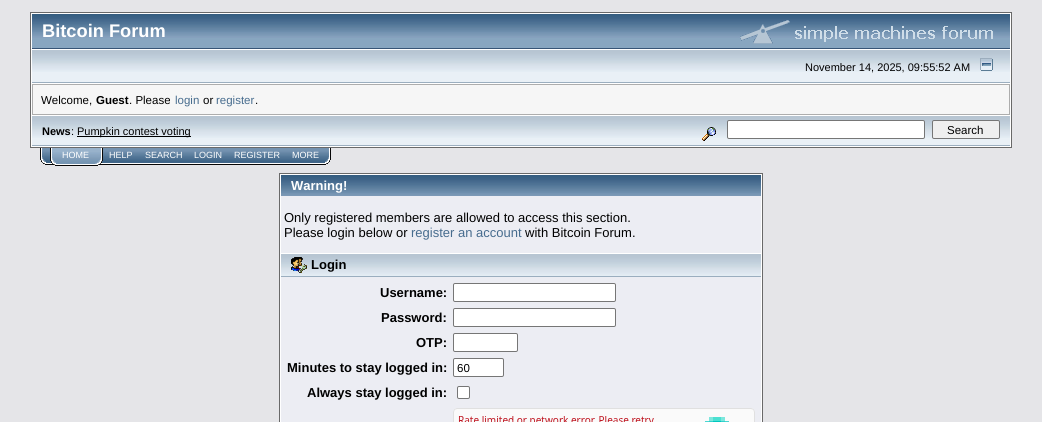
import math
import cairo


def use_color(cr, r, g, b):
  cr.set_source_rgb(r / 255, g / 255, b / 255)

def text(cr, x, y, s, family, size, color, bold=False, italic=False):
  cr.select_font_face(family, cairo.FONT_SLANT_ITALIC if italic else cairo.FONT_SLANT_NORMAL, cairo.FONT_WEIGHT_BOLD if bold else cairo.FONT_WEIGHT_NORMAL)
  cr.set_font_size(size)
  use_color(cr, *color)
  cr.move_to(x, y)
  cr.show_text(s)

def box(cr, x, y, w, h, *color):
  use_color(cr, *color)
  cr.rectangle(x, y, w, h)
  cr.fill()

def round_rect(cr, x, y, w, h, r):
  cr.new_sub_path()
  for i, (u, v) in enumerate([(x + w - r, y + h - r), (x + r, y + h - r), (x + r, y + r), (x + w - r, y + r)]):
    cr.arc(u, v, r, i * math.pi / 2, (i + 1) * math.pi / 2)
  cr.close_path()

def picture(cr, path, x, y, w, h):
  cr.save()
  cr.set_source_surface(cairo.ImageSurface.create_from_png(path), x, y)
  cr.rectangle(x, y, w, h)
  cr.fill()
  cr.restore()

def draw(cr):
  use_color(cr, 229, 229, 232)
  cr.paint()
  use_color(cr, 255, 255, 255)
  cr.rectangle(30.5, 12.5, 981, 135)
  cr.fill_preserve()
  use_color(cr, 105, 105, 105)
  cr.set_line_width(1)
  cr.stroke()
  box(cr, 32, 38, 978, 10, 136, 166, 192)
  picture(cr, "img_01.png", 32, 14, 329, 24)
  box(cr, 32, 48, 978, 1, 55, 85, 118)
  picture(cr, "img_02.png", 361, 14, 649, 24)
  picture(cr, "img_03.png", 740, 20, 253, 24)
  box(cr, 32, 72, 978, 10, 233, 240, 246)
  picture(cr, "img_04.png", 32, 50, 978, 22)
  box(cr, 32, 82, 978, 1, 155, 174, 191)
  picture(cr, "img_05.png", 980, 58, 13, 13)
  box(cr, 32, 84, 978, 31, 173, 173, 173)
  box(cr, 33, 85, 976, 29, 246, 246, 246)
  box(cr, 32, 138, 978, 7, 233, 240, 246)
  picture(cr, "img_06.png", 32, 116, 653, 22)
  box(cr, 32, 145, 978, 1, 155, 174, 191)
  box(cr, 77, 136, 114, 1, 0, 0, 0)
  picture(cr, "img_07.png", 685, 116, 325, 22)
  picture(cr, "img_08.png", 702, 127, 14, 14)
  use_color(cr, 255, 255, 255)
  round_rect(cr, 727.5, 120.5, 197, 18, 1.5)
  cr.fill_preserve()
  use_color(cr, 118, 118, 118)
  cr.stroke()
  use_color(cr, 239, 239, 239)
  round_rect(cr, 932.5, 120.5, 67, 18, 1.5)
  cr.fill_preserve()
  use_color(cr, 118, 118, 118)
  cr.stroke()
  picture(cr, "img_09.png", 40, 148, 10, 17)
  picture(cr, "img_10.png", 50, 148, 6, 18)
  picture(cr, "img_11.png", 56, 148, 39, 18)
  picture(cr, "img_12.png", 95, 148, 8, 18)
  picture(cr, "img_13.png", 103, 148, 36, 17)
  picture(cr, "img_14.png", 139, 148, 49, 17)
  picture(cr, "img_15.png", 188, 148, 40, 17)
  picture(cr, "img_16.png", 228, 148, 58, 17)
  picture(cr, "img_17.png", 286, 148, 39, 17)
  picture(cr, "img_18.png", 325, 148, 6, 17)
  use_color(cr, 255, 255, 255)
  cr.rectangle(279.5, 173.5, 483, 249)
  cr.fill_preserve()
  use_color(cr, 105, 105, 105)
  cr.stroke()
  picture(cr, "img_19.png", 281, 175, 480, 21)
  box(cr, 281, 196, 480, 57, 236, 237, 243)
  picture(cr, "img_20.png", 281, 254, 480, 22)
  box(cr, 281, 276, 480, 1, 155, 174, 191)
  picture(cr, "img_21.png", 291, 257, 16, 16)
  box(cr, 281, 277, 480, 145, 236, 237, 243)
  use_color(cr, 255, 255, 255)
  round_rect(cr, 453.5, 283.5, 162, 18, 1.5)
  cr.fill_preserve()
  use_color(cr, 118, 118, 118)
  cr.stroke()
  use_color(cr, 255, 255, 255)
  round_rect(cr, 453.5, 308.5, 162, 18, 1.5)
  cr.fill_preserve()
  use_color(cr, 118, 118, 118)
  cr.stroke()
  use_color(cr, 255, 255, 255)
  round_rect(cr, 453.5, 333.5, 64, 18, 1.5)
  cr.fill_preserve()
  use_color(cr, 118, 118, 118)
  cr.stroke()
  use_color(cr, 255, 255, 255)
  round_rect(cr, 453.5, 358.5, 50, 18, 1.5)
  cr.fill_preserve()
  use_color(cr, 118, 118, 118)
  cr.stroke()
  use_color(cr, 255, 255, 255)
  round_rect(cr, 457.5, 386.5, 12, 12, 1.5)
  cr.fill_preserve()
  use_color(cr, 118, 118, 118)
  cr.stroke()
  picture(cr, "img_22.png", 453, 408, 302, 14)
  text(cr, 42, 37, "Bitcoin Forum", "Liberation Sans", 18.25, (255, 255, 255), bold=True)
  text(cr, 805, 71, "November 14, 2025, 09:55:52 AM", "Liberation Sans", 11, (0, 0, 0))
  text(cr, 41, 104, "Welcome,", "Liberation Sans", 11.5, (0, 0, 0))
  text(cr, 96, 104, "Guest", "Liberation Sans", 11.5, (0, 0, 0), bold=True)
  text(cr, 129, 104, ". Please", "Liberation Sans", 11.5, (0, 0, 0))
  text(cr, 175, 104, "login", "Liberation Sans", 11.5, (71, 108, 142))
  text(cr, 203, 104, "or", "Liberation Sans", 11.5, (0, 0, 0))
  text(cr, 216, 104, "register", "Liberation Sans", 11.5, (71, 108, 142))
  text(cr, 255, 104, ".", "Liberation Sans", 11.5, (0, 0, 0))
  text(cr, 42, 135, "News", "Liberation Sans", 11, (0, 0, 0), bold=True)
  text(cr, 71, 135, ":", "Liberation Sans", 11, (0, 0, 0))
  text(cr, 77, 135, "Pumpkin contest voting", "Liberation Sans", 11, (0, 0, 0))
  text(cr, 947, 134, "Search", "Liberation Sans", 11.5, (0, 0, 0))
  text(cr, 62, 158, "HOME", "Liberation Sans", 9, (255, 255, 255))
  text(cr, 109, 158, "HELP", "Liberation Sans", 9, (255, 255, 255))
  text(cr, 145, 158, "SEARCH", "Liberation Sans", 9, (255, 255, 255))
  text(cr, 194, 158, "LOGIN", "Liberation Sans", 9, (255, 255, 255))
  text(cr, 234, 158, "REGISTER", "Liberation Sans", 9, (255, 255, 255))
  text(cr, 292, 158, "MORE", "Liberation Sans", 9, (255, 255, 255))
  text(cr, 291, 190, "Warning!", "Liberation Sans", 13, (255, 255, 255), bold=True)
  text(cr, 284, 222, "Only registered members are allowed to access this section.", "Liberation Sans", 13, (0, 0, 0))
  text(cr, 284, 237, "Please login below or", "Liberation Sans", 13, (0, 0, 0))
  text(cr, 411, 237, "register an account", "Liberation Sans", 13, (71, 108, 142))
  text(cr, 525, 237, "with Bitcoin Forum.", "Liberation Sans", 13, (0, 0, 0))
  text(cr, 311, 269, "Login", "Liberation Sans", 13, (0, 0, 0), bold=True)
  text(cr, 380, 297, "Username:", "Liberation Sans", 13, (0, 0, 0), bold=True)
  text(cr, 381, 322, "Password:", "Liberation Sans", 13, (0, 0, 0), bold=True)
  text(cr, 416, 347, "OTP:", "Liberation Sans", 13, (0, 0, 0), bold=True)
  text(cr, 287, 372, "Minutes to stay logged in:", "Liberation Sans", 13, (0, 0, 0), bold=True)
  text(cr, 457, 372, "60", "Liberation Sans", 11.5, (0, 0, 0))
  text(cr, 307, 397, "Always stay logged in:", "Liberation Sans", 13, (0, 0, 0), bold=True)


surface = cairo.ImageSurface(cairo.FORMAT_RGB24, 1042, 422)
cr = cairo.Context(surface)
options = cairo.FontOptions()
options.set_hint_metrics(cairo.HINT_METRICS_OFF)
options.set_hint_style(cairo.HINT_STYLE_NONE)
cr.set_font_options(options)
cr.set_miter_limit(4)
draw(cr)
surface.write_to_png("out.png")
